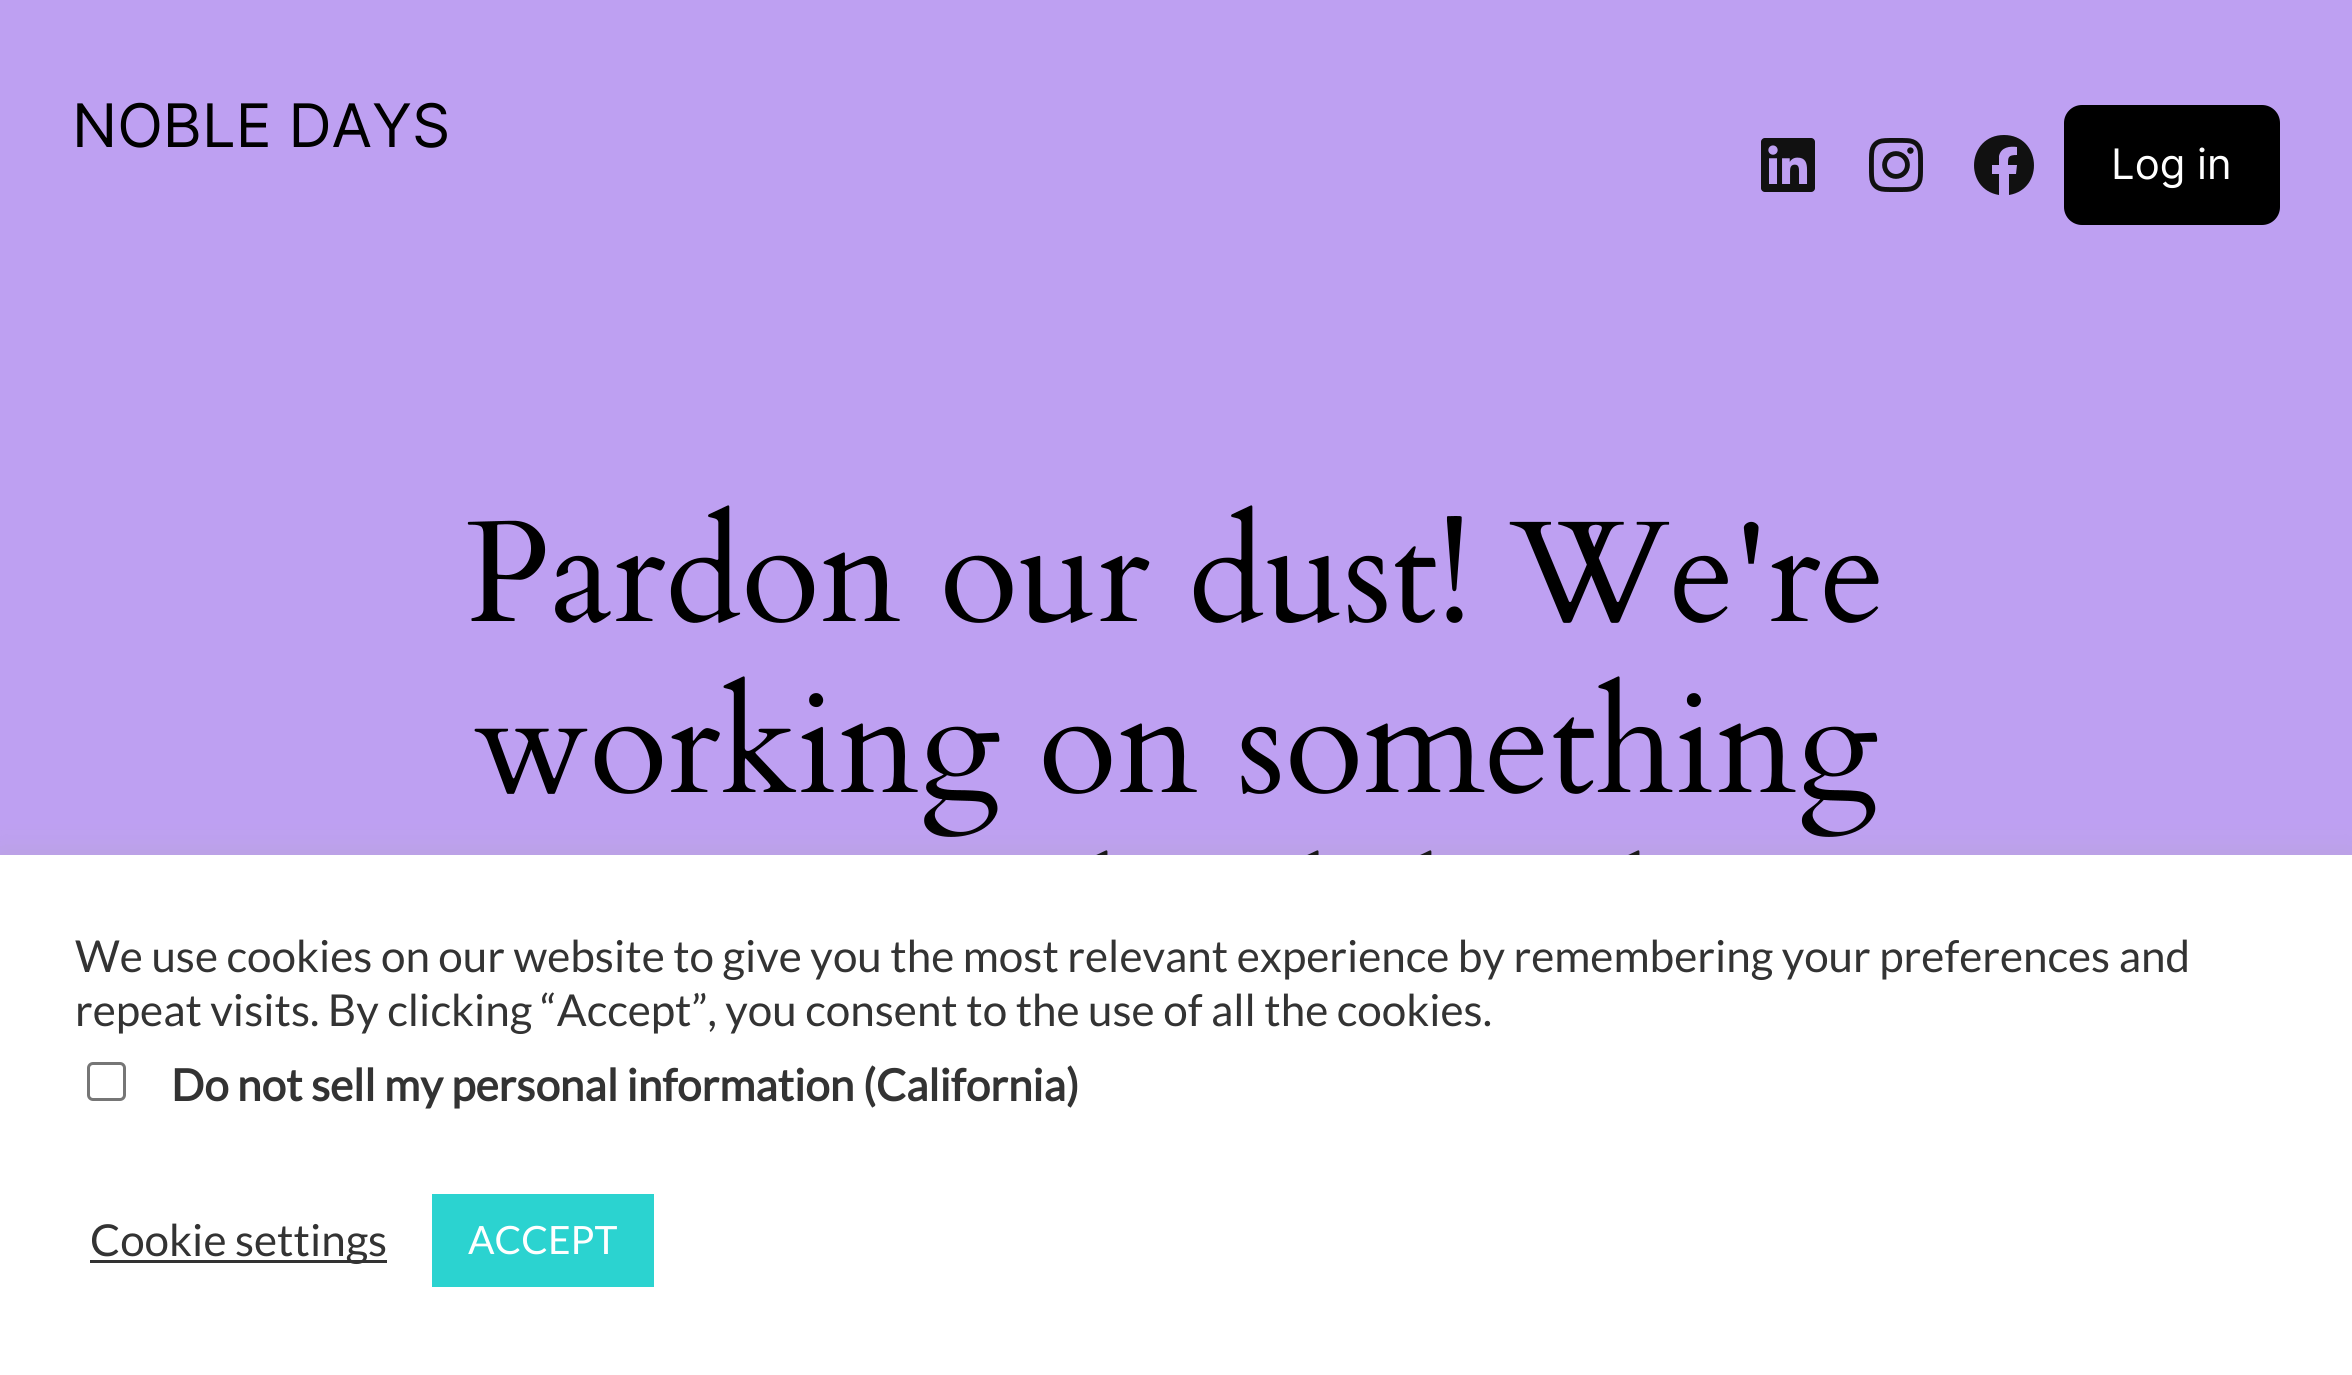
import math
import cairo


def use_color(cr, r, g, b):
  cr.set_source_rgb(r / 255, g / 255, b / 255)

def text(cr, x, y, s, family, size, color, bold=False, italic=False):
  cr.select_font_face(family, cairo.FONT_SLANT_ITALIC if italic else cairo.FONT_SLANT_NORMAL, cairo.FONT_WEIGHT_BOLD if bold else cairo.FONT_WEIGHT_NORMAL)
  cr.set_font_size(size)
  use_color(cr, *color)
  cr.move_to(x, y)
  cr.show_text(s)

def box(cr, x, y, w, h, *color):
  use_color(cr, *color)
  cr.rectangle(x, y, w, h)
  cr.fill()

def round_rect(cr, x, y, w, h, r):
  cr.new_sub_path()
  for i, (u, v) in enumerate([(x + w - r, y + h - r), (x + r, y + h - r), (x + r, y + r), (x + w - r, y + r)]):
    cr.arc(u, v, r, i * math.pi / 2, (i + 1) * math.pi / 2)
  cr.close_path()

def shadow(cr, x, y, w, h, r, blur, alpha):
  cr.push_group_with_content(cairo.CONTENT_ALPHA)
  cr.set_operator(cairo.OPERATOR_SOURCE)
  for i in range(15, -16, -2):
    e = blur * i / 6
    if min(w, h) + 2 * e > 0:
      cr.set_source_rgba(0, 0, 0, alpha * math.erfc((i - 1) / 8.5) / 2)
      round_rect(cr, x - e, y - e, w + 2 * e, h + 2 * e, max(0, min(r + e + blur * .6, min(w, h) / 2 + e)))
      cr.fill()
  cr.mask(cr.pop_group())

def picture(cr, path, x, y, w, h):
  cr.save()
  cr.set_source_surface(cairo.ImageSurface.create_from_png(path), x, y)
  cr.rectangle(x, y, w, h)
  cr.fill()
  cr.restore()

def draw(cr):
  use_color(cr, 190, 160, 242)
  cr.paint()
  picture(cr, "img_01.png", 1761, 138, 54, 54)
  picture(cr, "img_02.png", 1869, 138, 54, 54)
  use_color(cr, 17, 17, 17)
  cr.new_path()
  cr.move_to(2004, 135)
  cr.curve_to(1967, 135, 1963, 189, 1999, 195)
  cr.line_to(1999, 174)
  cr.line_to(1992, 174)
  cr.line_to(1992, 165)
  cr.line_to(1999, 165)
  cr.line_to(1999, 156)
  cr.curve_to(2001, 147, 2010, 146, 2017, 147)
  cr.line_to(2017, 155)
  cr.curve_to(2008, 155, 2008, 157, 2008, 165)
  cr.line_to(2017, 165)
  cr.line_to(2016, 174)
  cr.line_to(2009, 174)
  cr.line_to(2009, 195)
  cr.curve_to(2045, 189, 2041, 135, 2004, 135)
  cr.close_path()
  cr.fill()
  use_color(cr, 0, 0, 0)
  round_rect(cr, 2064, 105, 216, 120, 18)
  cr.fill()
  picture(cr, "img_03.png", 467, 505, 1412, 118)
  picture(cr, "img_04.png", 474, 676, 1404, 161)
  picture(cr, "img_05.png", 1096, 850, 544, 5)
  use_color(cr, 172, 171, 171)
  shadow(cr, 0, 852, 2352, 522, 0, 15, 0.3)
  box(cr, 0, 855, 2352, 520, 255, 255, 255)
  round_rect(cr, 88.5, 1063.5, 36, 36, 4.5)
  use_color(cr, 118, 118, 118)
  cr.set_line_width(3)
  cr.stroke()
  box(cr, 90, 1260, 297, 3, 51, 51, 51)
  box(cr, 432, 1194, 222, 93, 43, 211, 208)
  text(cr, 72, 147, "NOBLE DAYS", "Inter", 60, (0, 0, 0))
  text(cr, 2111, 179, "Log in", "Inter", 42, (255, 255, 255))
  text(cr, 75, 972, "We use cookies on our website to give you the most relevant experience by remembering your preferences and", "Lato", 44, (51, 51, 51))
  text(cr, 75, 1026, "repeat visits. By clicking “Accept”, you consent to the use of all the cookies.", "Lato", 44, (51, 51, 51))
  text(cr, 171, 1101, "Do not sell my personal information (California)", "Lato", 44, (51, 51, 51), bold=True)
  text(cr, 90, 1256, "Cookie settings", "Lato", 44, (51, 51, 51))
  text(cr, 468, 1254, "ACCEPT", "Lato", 39, (255, 255, 255))


surface = cairo.ImageSurface(cairo.FORMAT_RGB24, 2352, 1375)
cr = cairo.Context(surface)
options = cairo.FontOptions()
options.set_hint_metrics(cairo.HINT_METRICS_OFF)
options.set_hint_style(cairo.HINT_STYLE_NONE)
cr.set_font_options(options)
cr.set_miter_limit(4)
draw(cr)
surface.write_to_png("out.png")
